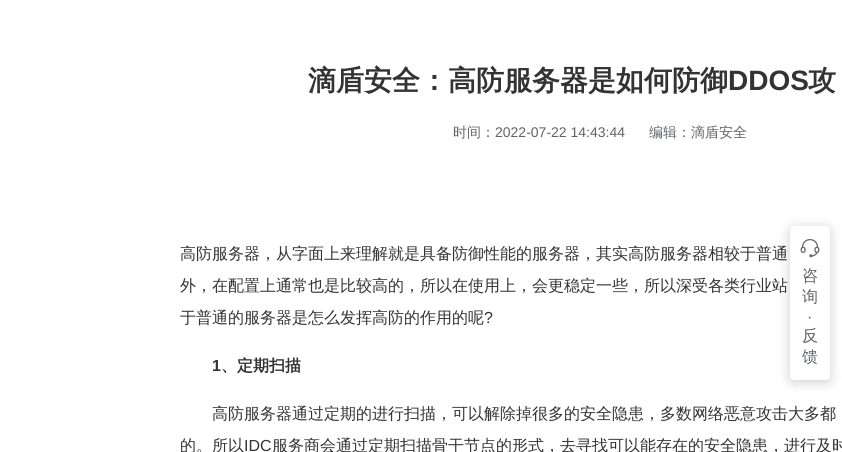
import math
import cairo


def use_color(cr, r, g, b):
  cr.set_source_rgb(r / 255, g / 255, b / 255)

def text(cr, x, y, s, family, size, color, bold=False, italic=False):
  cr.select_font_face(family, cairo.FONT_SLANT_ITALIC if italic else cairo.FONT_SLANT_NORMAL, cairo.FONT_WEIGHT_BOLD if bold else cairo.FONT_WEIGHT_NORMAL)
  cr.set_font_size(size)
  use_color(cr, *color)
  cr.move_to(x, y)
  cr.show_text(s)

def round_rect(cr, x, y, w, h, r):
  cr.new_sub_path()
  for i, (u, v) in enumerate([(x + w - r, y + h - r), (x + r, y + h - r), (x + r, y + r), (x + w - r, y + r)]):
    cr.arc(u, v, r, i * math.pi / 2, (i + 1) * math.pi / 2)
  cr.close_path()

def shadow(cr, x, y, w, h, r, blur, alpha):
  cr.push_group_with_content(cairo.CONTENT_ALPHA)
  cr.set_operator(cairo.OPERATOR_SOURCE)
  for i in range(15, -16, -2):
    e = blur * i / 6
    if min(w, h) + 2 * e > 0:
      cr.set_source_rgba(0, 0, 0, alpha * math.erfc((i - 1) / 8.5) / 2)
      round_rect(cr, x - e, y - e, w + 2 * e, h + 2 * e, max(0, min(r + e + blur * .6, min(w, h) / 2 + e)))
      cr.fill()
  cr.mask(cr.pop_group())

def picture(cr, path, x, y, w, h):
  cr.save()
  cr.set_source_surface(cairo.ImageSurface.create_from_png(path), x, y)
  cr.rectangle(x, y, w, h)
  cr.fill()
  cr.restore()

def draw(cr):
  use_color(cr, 255, 255, 255)
  cr.paint()
  use_color(cr, 0, 0, 0)
  shadow(cr, 790, 228, 40, 154, 4, 6, 0.2)
  use_color(cr, 255, 255, 255)
  round_rect(cr, 790, 226, 40, 154, 4)
  cr.fill()
  picture(cr, "img_01.png", 800, 239, 20, 19)
  text(cr, 308, 90, "滴盾安全：高防服务器是如何防御", "WenQuanYi Zen Hei", 28, (51, 51, 51), bold=True)
  text(cr, 728, 90, "DDOS", "Liberation Sans", 28, (51, 51, 51), bold=True)
  text(cr, 808, 90, "攻", "WenQuanYi Zen Hei", 28, (51, 51, 51), bold=True)
  text(cr, 453, 137, "时间：", "WenQuanYi Zen Hei Medium", 14, (96, 98, 102))
  text(cr, 495, 137, "2022-07-22 14:43:44", "Liberation Sans", 14, (96, 98, 102))
  text(cr, 649, 137, "编辑：滴盾安全", "WenQuanYi Zen Hei Medium", 14, (96, 98, 102))
  text(cr, 180, 259, "高防服务器，从字面上来理解就是具备防御性能的服务器，其实高防服务器相较于普通", "WenQuanYi Zen Hei Medium", 16, (51, 51, 51))
  text(cr, 180, 291, "外，在配置上通常也是比较高的，所以在使用上，会更稳定一些，所以深受各类行业站", "WenQuanYi Zen Hei Medium", 16, (51, 51, 51))
  text(cr, 180, 323, "于普通的服务器是怎么发挥高防的作用的呢", "WenQuanYi Zen Hei Medium", 16, (51, 51, 51))
  text(cr, 484, 323, "?", "Liberation Sans", 16, (51, 51, 51))
  text(cr, 212, 371, "1", "Liberation Sans", 16, (51, 51, 51), bold=True)
  text(cr, 221, 371, "、定期扫描", "WenQuanYi Zen Hei", 16, (51, 51, 51), bold=True)
  text(cr, 212, 419, "高防服务器通过定期的进行扫描，可以解除掉很多的安全隐患，多数网络恶意攻击大多都", "WenQuanYi Zen Hei Medium", 16, (51, 51, 51))
  text(cr, 180, 451, "的。所以", "WenQuanYi Zen Hei Medium", 16, (51, 51, 51))
  text(cr, 244, 451, "IDC", "Liberation Sans", 16, (51, 51, 51))
  text(cr, 272, 451, "服务商会通过定期扫描骨干节点的形式，去寻找可以能存在的安全隐患，进行及时", "WenQuanYi Zen Hei Medium", 16, (51, 51, 51))
  text(cr, 802, 281, "咨", "WenQuanYi Zen Hei Medium", 16, (96, 98, 102))
  text(cr, 802, 302, "询", "WenQuanYi Zen Hei Medium", 16, (96, 98, 102))
  text(cr, 807, 322, "·", "Liberation Sans", 16, (96, 98, 102))
  text(cr, 802, 341, "反", "WenQuanYi Zen Hei Medium", 16, (96, 98, 102))
  text(cr, 802, 362, "馈", "WenQuanYi Zen Hei Medium", 16, (96, 98, 102))


surface = cairo.ImageSurface(cairo.FORMAT_RGB24, 842, 452)
cr = cairo.Context(surface)
options = cairo.FontOptions()
options.set_hint_metrics(cairo.HINT_METRICS_OFF)
options.set_hint_style(cairo.HINT_STYLE_NONE)
cr.set_font_options(options)
cr.set_miter_limit(4)
draw(cr)
surface.write_to_png("out.png")
